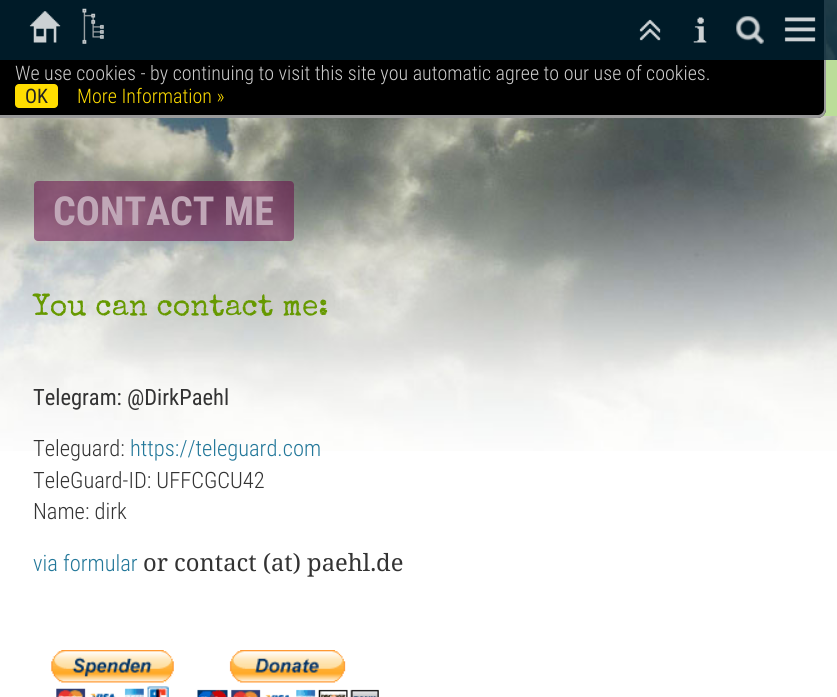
import math
import cairo


def use_color(cr, r, g, b):
  cr.set_source_rgb(r / 255, g / 255, b / 255)

def text(cr, x, y, s, family, size, color, bold=False, italic=False):
  cr.select_font_face(family, cairo.FONT_SLANT_ITALIC if italic else cairo.FONT_SLANT_NORMAL, cairo.FONT_WEIGHT_BOLD if bold else cairo.FONT_WEIGHT_NORMAL)
  cr.set_font_size(size)
  use_color(cr, *color)
  cr.move_to(x, y)
  cr.show_text(s)

def box(cr, x, y, w, h, *color):
  use_color(cr, *color)
  cr.rectangle(x, y, w, h)
  cr.fill()

def round_rect(cr, x, y, w, h, r):
  cr.new_sub_path()
  for i, (u, v) in enumerate([(x + w - r, y + h - r), (x + r, y + h - r), (x + r, y + r), (x + w - r, y + r)]):
    cr.arc(u, v, r, i * math.pi / 2, (i + 1) * math.pi / 2)
  cr.close_path()

def picture(cr, path, x, y, w, h):
  cr.save()
  cr.set_source_surface(cairo.ImageSurface.create_from_png(path), x, y)
  cr.rectangle(x, y, w, h)
  cr.fill()
  cr.restore()

def draw(cr):
  use_color(cr, 255, 255, 255)
  cr.paint()
  picture(cr, "img_07.png", 0, 0, 837, 451)
  box(cr, 822, 60, 15, 56, 187, 221, 153)
  use_color(cr, 0, 0, 0)
  cr.new_path()
  cr.move_to(0, 0)
  cr.line_to(826, 0)
  cr.line_to(826, 109)
  cr.curve_to(826, 114, 822, 118, 817, 118)
  cr.line_to(0, 118)
  cr.close_path()
  cr.fill()
  use_color(cr, 153, 153, 153)
  cr.set_fill_rule(cairo.FILL_RULE_EVEN_ODD)
  cr.new_path()
  cr.move_to(0, 0)
  cr.line_to(826, 0)
  cr.line_to(826, 109)
  cr.curve_to(826, 114, 822, 118, 818, 118)
  cr.line_to(0, 118)
  cr.close_path()
  cr.move_to(0, 0)
  cr.line_to(824, 0)
  cr.line_to(824, 109)
  cr.curve_to(824, 112, 821, 115, 818, 115)
  cr.line_to(0, 115)
  cr.close_path()
  cr.fill()
  cr.set_source_rgba(0, 0.133, 0.2, 0.8)
  cr.rectangle(0, 0, 837, 60)
  cr.fill()
  picture(cr, "img_01.png", 29, 11, 32, 32)
  picture(cr, "img_02.png", 82, 8, 22, 36)
  picture(cr, "img_03.png", 639, 19, 22, 22)
  picture(cr, "img_04.png", 693, 17, 14, 26)
  picture(cr, "img_05.png", 736, 16, 28, 28)
  picture(cr, "img_06.png", 784, 17, 32, 25)
  cr.set_source_rgba(0.4, 0, 0.267, 0.5)
  round_rect(cr, 34, 181, 260, 60, 4)
  cr.fill()
  picture(cr, "img_08.png", 51, 650, 123, 47)
  picture(cr, "img_09.png", 197, 650, 182, 47)
  text(cr, 15, 80, "We use cookies - by continuing to visit this site you automatic agree to our use of cookies.", "Roboto Condensed Light", 20, (204, 204, 204))
  use_color(cr, 255, 221, 0)
  round_rect(cr, 15, 84, 43, 24, 4)
  cr.fill()
  text(cr, 25, 103, "OK", "Roboto Condensed", 20, (34, 34, 34))
  text(cr, 77, 103, "More Information »", "Roboto Condensed Light", 20, (255, 221, 0))
  text(cr, 53, 225, "CONTACT ME", "Roboto Condensed", 40, (192, 167, 183), bold=True)
  text(cr, 33, 315, "You can contact me:", "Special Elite", 30, (102, 153, 0))
  text(cr, 33, 405, "Telegram: @DirkPaehl", "Roboto Condensed", 22.5, (51, 51, 51))
  text(cr, 33, 456, "Teleguard:", "Roboto Condensed Light", 22.5, (51, 51, 51))
  text(cr, 130, 456, "https://teleguard.com", "Roboto Condensed Light", 22.5, (34, 119, 153))
  text(cr, 33, 488, "TeleGuard-ID: UFFCGCU42", "Roboto Condensed Light", 22.5, (51, 51, 51))
  text(cr, 33, 519, "Name: dirk", "Roboto Condensed Light", 22.5, (51, 51, 51))
  text(cr, 33, 571, "via formular", "Roboto Condensed Light", 22.5, (34, 119, 153))
  text(cr, 143, 571, "or contact (at) paehl.de", "Noto Serif", 23.75, (51, 51, 51))


surface = cairo.ImageSurface(cairo.FORMAT_RGB24, 837, 697)
cr = cairo.Context(surface)
options = cairo.FontOptions()
options.set_hint_metrics(cairo.HINT_METRICS_OFF)
options.set_hint_style(cairo.HINT_STYLE_NONE)
cr.set_font_options(options)
cr.set_miter_limit(4)
draw(cr)
surface.write_to_png("out.png")
